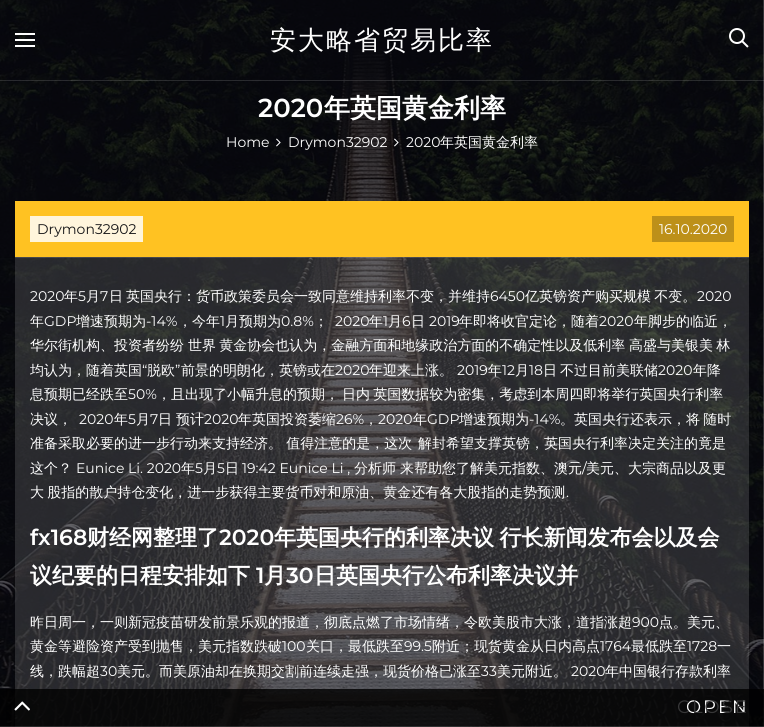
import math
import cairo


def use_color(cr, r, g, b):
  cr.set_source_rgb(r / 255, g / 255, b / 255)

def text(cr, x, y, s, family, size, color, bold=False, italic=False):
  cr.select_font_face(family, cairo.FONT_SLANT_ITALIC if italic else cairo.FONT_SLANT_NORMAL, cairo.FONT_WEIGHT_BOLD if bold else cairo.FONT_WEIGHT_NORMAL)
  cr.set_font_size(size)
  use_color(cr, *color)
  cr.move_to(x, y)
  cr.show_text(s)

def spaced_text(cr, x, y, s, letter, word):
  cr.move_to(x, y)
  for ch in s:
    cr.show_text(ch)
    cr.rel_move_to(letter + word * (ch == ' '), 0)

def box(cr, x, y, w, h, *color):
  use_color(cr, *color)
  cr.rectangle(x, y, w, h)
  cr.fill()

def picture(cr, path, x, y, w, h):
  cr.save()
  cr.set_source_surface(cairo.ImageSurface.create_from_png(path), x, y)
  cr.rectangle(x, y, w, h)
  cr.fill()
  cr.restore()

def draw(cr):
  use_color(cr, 255, 255, 255)
  cr.paint()
  picture(cr, "img_01.png", 0, 0, 764, 727)
  cr.set_source_rgba(1, 1, 1, 0.14)
  cr.rectangle(0, 80, 764, 1)
  cr.fill()
  picture(cr, "img_02.png", 15, 33, 20, 14)
  picture(cr, "img_03.png", 729, 28, 20, 20)
  picture(cr, "img_04.png", 276, 138, 5, 9)
  picture(cr, "img_05.png", 394, 138, 5, 9)
  cr.rectangle(15, 257, 734, 470)
  cr.fill()
  box(cr, 15, 201, 734, 56, 255, 194, 34)
  box(cr, 30, 216, 113, 26, 255, 245, 220)
  box(cr, 652, 216, 82, 26, 189, 144, 25)
  cr.set_source_rgba(1, 1, 1, 0.14)
  cr.rectangle(15, 257, 734, 1)
  cr.fill()
  cr.set_source_rgba(0, 0, 0, 0.7)
  cr.rectangle(0, 689, 764, 38)
  cr.fill()
  cr.set_source_rgba(0, 0, 0, 0.33)
  cr.rectangle(6, 689, 758, 38)
  cr.fill()
  cr.set_source_rgba(1, 1, 1, 0.14)
  cr.rectangle(0, 726, 764, 1)
  cr.fill()
  picture(cr, "img_06.png", 14, 701, 16, 10)
  cr.select_font_face("WenQuanYi Zen Hei Medium")
  cr.set_font_size(26)
  use_color(cr, 255, 255, 255)
  spaced_text(cr, 270, 49, "安大略省贸易比率", 2, 0)
  text(cr, 258, 117, "2020", "Montserrat SemiBold", 26, (255, 255, 255))
  text(cr, 324, 117, "年英国黄金利率", "WenQuanYi Zen Hei", 26, (255, 255, 255), bold=True)
  text(cr, 226, 147, "Home", "Montserrat", 14, (255, 255, 255))
  text(cr, 288, 147, "Drymon32902", "Montserrat", 14, (255, 255, 255))
  text(cr, 406, 147, "2020", "Montserrat", 14, (255, 255, 255))
  text(cr, 440, 147, "年英国黄金利率", "WenQuanYi Zen Hei Medium", 14, (255, 255, 255))
  text(cr, 37, 234, "Drymon32902", "Montserrat", 14, (20, 20, 22))
  text(cr, 659, 234, "16.10.2020", "Montserrat", 14, (255, 255, 255))
  text(cr, 30, 301, "2020", "Montserrat", 14, (255, 255, 255))
  text(cr, 64, 301, "年", "WenQuanYi Zen Hei Medium", 14, (255, 255, 255))
  text(cr, 78, 301, "5", "Montserrat", 14, (255, 255, 255))
  text(cr, 86, 301, "月", "WenQuanYi Zen Hei Medium", 14, (255, 255, 255))
  text(cr, 100, 301, "7", "Montserrat", 14, (255, 255, 255))
  text(cr, 109, 301, "日", "WenQuanYi Zen Hei Medium", 14, (255, 255, 255))
  text(cr, 126, 301, "英国央行：货币政策委员会一致同意维持利率不变，并维持", "WenQuanYi Zen Hei Medium", 14, (255, 255, 255))
  text(cr, 490, 301, "6450", "Montserrat", 14, (255, 255, 255))
  cr.select_font_face("WenQuanYi Zen Hei Medium")
  spaced_text(cr, 525, 301, "亿英镑资产购买规模 不变。", 0, -1)
  text(cr, 697, 301, "2020", "Montserrat", 14, (255, 255, 255))
  text(cr, 30, 326, "年", "WenQuanYi Zen Hei Medium", 14, (255, 255, 255))
  text(cr, 44, 326, "GDP", "Montserrat", 14, (255, 255, 255))
  text(cr, 76, 326, "增速预期为", "WenQuanYi Zen Hei Medium", 14, (255, 255, 255))
  text(cr, 146, 326, "-14%", "Montserrat", 14, (255, 255, 255))
  text(cr, 178, 326, "，今年", "WenQuanYi Zen Hei Medium", 14, (255, 255, 255))
  text(cr, 220, 326, "1", "Montserrat", 14, (255, 255, 255))
  text(cr, 225, 326, "月预期为", "WenQuanYi Zen Hei Medium", 14, (255, 255, 255))
  text(cr, 281, 326, "0.8%", "Montserrat", 14, (255, 255, 255))
  text(cr, 314, 326, "；", "WenQuanYi Zen Hei Medium", 14, (255, 255, 255))
  text(cr, 335, 326, "2020", "Montserrat", 14, (255, 255, 255))
  text(cr, 369, 326, "年", "WenQuanYi Zen Hei Medium", 14, (255, 255, 255))
  text(cr, 383, 326, "1", "Montserrat", 14, (255, 255, 255))
  text(cr, 388, 326, "月", "WenQuanYi Zen Hei Medium", 14, (255, 255, 255))
  text(cr, 402, 326, "6", "Montserrat", 14, (255, 255, 255))
  text(cr, 411, 326, "日", "WenQuanYi Zen Hei Medium", 14, (255, 255, 255))
  text(cr, 429, 326, "2019", "Montserrat", 14, (255, 255, 255))
  text(cr, 459, 326, "年即将收官定论，随着", "WenQuanYi Zen Hei Medium", 14, (255, 255, 255))
  text(cr, 599, 326, "2020", "Montserrat", 14, (255, 255, 255))
  text(cr, 634, 326, "年脚步的临近，", "WenQuanYi Zen Hei Medium", 14, (255, 255, 255))
  text(cr, 30, 350, "华尔街机构、投资者纷纷", "WenQuanYi Zen Hei Medium", 14, (255, 255, 255))
  spaced_text(cr, 188, 350, "世界 黄金协会也认为，金融方面和地缘政治方面的不确定性以及低利率", 0, -1)
  spaced_text(cr, 629, 350, "高盛与美银美 林", 0, -1)
  text(cr, 30, 375, "均认为，随着英国", "WenQuanYi Zen Hei Medium", 14, (255, 255, 255))
  text(cr, 142, 375, "“", "Montserrat", 14, (255, 255, 255))
  text(cr, 147, 375, "脱欧", "WenQuanYi Zen Hei Medium", 14, (255, 255, 255))
  text(cr, 175, 375, "”", "Montserrat", 14, (255, 255, 255))
  text(cr, 181, 375, "前景的明朗化，英镑或在", "WenQuanYi Zen Hei Medium", 14, (255, 255, 255))
  text(cr, 335, 375, "2020", "Montserrat", 14, (255, 255, 255))
  text(cr, 369, 375, "年迎来上涨。", "WenQuanYi Zen Hei Medium", 14, (255, 255, 255))
  text(cr, 457, 375, "2019", "Montserrat", 14, (255, 255, 255))
  text(cr, 488, 375, "年", "WenQuanYi Zen Hei Medium", 14, (255, 255, 255))
  text(cr, 502, 375, "12", "Montserrat", 14, (255, 255, 255))
  text(cr, 515, 375, "月", "WenQuanYi Zen Hei Medium", 14, (255, 255, 255))
  text(cr, 529, 375, "18", "Montserrat", 14, (255, 255, 255))
  text(cr, 543, 375, "日", "WenQuanYi Zen Hei Medium", 14, (255, 255, 255))
  text(cr, 560, 375, "不过目前美联储", "WenQuanYi Zen Hei Medium", 14, (255, 255, 255))
  text(cr, 658, 375, "2020", "Montserrat", 14, (255, 255, 255))
  text(cr, 693, 375, "年降", "WenQuanYi Zen Hei Medium", 14, (255, 255, 255))
  text(cr, 30, 399, "息预期已经跌至", "WenQuanYi Zen Hei Medium", 14, (255, 255, 255))
  text(cr, 128, 399, "50%", "Montserrat", 14, (255, 255, 255))
  text(cr, 157, 399, "，且出现了小幅升息的预期，", "WenQuanYi Zen Hei Medium", 14, (255, 255, 255))
  spaced_text(cr, 342, 399, "日内 英国数据较为密集，考虑到本周四即将举行英国央行利率", 0, -1)
  text(cr, 30, 424, "决议，", "WenQuanYi Zen Hei Medium", 14, (255, 255, 255))
  text(cr, 79, 424, "2020", "Montserrat", 14, (255, 255, 255))
  text(cr, 114, 424, "年", "WenQuanYi Zen Hei Medium", 14, (255, 255, 255))
  text(cr, 128, 424, "5", "Montserrat", 14, (255, 255, 255))
  text(cr, 136, 424, "月", "WenQuanYi Zen Hei Medium", 14, (255, 255, 255))
  text(cr, 150, 424, "7", "Montserrat", 14, (255, 255, 255))
  text(cr, 158, 424, "日", "WenQuanYi Zen Hei Medium", 14, (255, 255, 255))
  text(cr, 176, 424, "预计", "WenQuanYi Zen Hei Medium", 14, (255, 255, 255))
  text(cr, 204, 424, "2020", "Montserrat", 14, (255, 255, 255))
  text(cr, 238, 424, "年英国投资萎缩", "WenQuanYi Zen Hei Medium", 14, (255, 255, 255))
  text(cr, 336, 424, "26%", "Montserrat", 14, (255, 255, 255))
  text(cr, 364, 424, "，", "WenQuanYi Zen Hei Medium", 14, (255, 255, 255))
  text(cr, 378, 424, "2020", "Montserrat", 14, (255, 255, 255))
  text(cr, 413, 424, "年", "WenQuanYi Zen Hei Medium", 14, (255, 255, 255))
  text(cr, 427, 424, "GDP", "Montserrat", 14, (255, 255, 255))
  text(cr, 459, 424, "增速预期为", "WenQuanYi Zen Hei Medium", 14, (255, 255, 255))
  text(cr, 529, 424, "-14%", "Montserrat", 14, (255, 255, 255))
  cr.select_font_face("WenQuanYi Zen Hei Medium")
  spaced_text(cr, 560, 424, "。英国央行还表示，将 随时", 0, -1)
  text(cr, 30, 448, "准备采取必要的进一步行动来支持经济。 值得注意的是，这次", "WenQuanYi Zen Hei Medium", 14, (255, 255, 255))
  text(cr, 418, 448, "解封希望支撑英镑，英国央行利率决定关注的竟是", "WenQuanYi Zen Hei Medium", 14, (255, 255, 255))
  text(cr, 30, 473, "这个？", "WenQuanYi Zen Hei Medium", 14, (255, 255, 255))
  text(cr, 76, 473, "Eunice Li. 2020", "Montserrat", 14, (255, 255, 255))
  text(cr, 181, 473, "年", "WenQuanYi Zen Hei Medium", 14, (255, 255, 255))
  text(cr, 195, 473, "5", "Montserrat", 14, (255, 255, 255))
  text(cr, 203, 473, "月", "WenQuanYi Zen Hei Medium", 14, (255, 255, 255))
  text(cr, 217, 473, "5", "Montserrat", 14, (255, 255, 255))
  text(cr, 225, 473, "日", "WenQuanYi Zen Hei Medium", 14, (255, 255, 255))
  text(cr, 242, 473, "19:42 Eunice Li ,", "Montserrat", 14, (255, 255, 255))
  text(cr, 354, 473, "分析师", "WenQuanYi Zen Hei Medium", 14, (255, 255, 255))
  text(cr, 400, 473, "来帮助您了解美元指数、澳元", "WenQuanYi Zen Hei Medium", 14, (255, 255, 255))
  text(cr, 582, 473, "/", "Montserrat", 14, (255, 255, 255))
  text(cr, 586, 473, "美元、大宗商品以及更", "WenQuanYi Zen Hei Medium", 14, (255, 255, 255))
  spaced_text(cr, 30, 497, "大 股指的散户持仓变化，进一步获得主要货币对和原油、黄金还有各大股指的走势预测", 0, -1)
  text(cr, 566, 497, ".", "Montserrat", 14, (255, 255, 255))
  text(cr, 30, 545, "fx168", "Montserrat SemiBold", 22, (255, 255, 255))
  text(cr, 87, 545, "财经网整理了", "WenQuanYi Zen Hei", 22, (255, 255, 255), bold=True)
  text(cr, 219, 545, "2020", "Montserrat SemiBold", 22, (255, 255, 255))
  cr.select_font_face("WenQuanYi Zen Hei", cairo.FONT_SLANT_NORMAL, cairo.FONT_WEIGHT_BOLD)
  spaced_text(cr, 274, 545, "年英国央行的利率决议 行长新闻发布会以及会", 0, -1)
  text(cr, 30, 583, "议纪要的日程安排如下", "WenQuanYi Zen Hei", 22, (255, 255, 255), bold=True)
  text(cr, 256, 583, "1", "Montserrat SemiBold", 22, (255, 255, 255))
  text(cr, 264, 583, "月", "WenQuanYi Zen Hei", 22, (255, 255, 255), bold=True)
  text(cr, 286, 583, "30", "Montserrat SemiBold", 22, (255, 255, 255))
  text(cr, 314, 583, "日英国央行公布利率决议并", "WenQuanYi Zen Hei", 22, (255, 255, 255), bold=True)
  text(cr, 30, 627, "昨日周一，一则新冠疫苗研发前景乐观的报道，彻底点燃了市场情绪，令欧美股市大涨，道指涨超", "WenQuanYi Zen Hei Medium", 14, (255, 255, 255))
  text(cr, 632, 627, "900", "Montserrat", 14, (255, 255, 255))
  text(cr, 659, 627, "点。美元、", "WenQuanYi Zen Hei Medium", 14, (255, 255, 255))
  text(cr, 30, 651, "黄金等避险资产受到抛售，美元指数跌破", "WenQuanYi Zen Hei Medium", 14, (255, 255, 255))
  text(cr, 282, 651, "100", "Montserrat", 14, (255, 255, 255))
  text(cr, 306, 651, "关口，最低跌至", "WenQuanYi Zen Hei Medium", 14, (255, 255, 255))
  text(cr, 404, 651, "99.5", "Montserrat", 14, (255, 255, 255))
  text(cr, 432, 651, "附近；现货黄金从日内高点", "WenQuanYi Zen Hei Medium", 14, (255, 255, 255))
  text(cr, 600, 651, "1764", "Montserrat", 14, (255, 255, 255))
  text(cr, 631, 651, "最低跌至", "WenQuanYi Zen Hei Medium", 14, (255, 255, 255))
  text(cr, 687, 651, "1728", "Montserrat", 14, (255, 255, 255))
  text(cr, 717, 651, "一", "WenQuanYi Zen Hei Medium", 14, (255, 255, 255))
  text(cr, 30, 676, "线，跌幅超", "WenQuanYi Zen Hei Medium", 14, (255, 255, 255))
  text(cr, 100, 676, "30", "Montserrat", 14, (255, 255, 255))
  text(cr, 117, 676, "美元。而美原油却在换期交割前连续走强，现货价格已涨至", "WenQuanYi Zen Hei Medium", 14, (255, 255, 255))
  text(cr, 481, 676, "33", "Montserrat", 14, (255, 255, 255))
  text(cr, 497, 676, "美元附近。", "WenQuanYi Zen Hei Medium", 14, (255, 255, 255))
  text(cr, 571, 676, "2020", "Montserrat", 14, (255, 255, 255))
  text(cr, 605, 676, "年中国银行存款利率", "WenQuanYi Zen Hei Medium", 14, (255, 255, 255))
  cr.select_font_face("Montserrat")
  cr.set_font_size(18)
  spaced_text(cr, 686, 713, "OPEN", 2, 0)
  use_color(cr, 55, 55, 56)
  spaced_text(cr, 677, 713, "CLOSE", 2, 0)


surface = cairo.ImageSurface(cairo.FORMAT_RGB24, 764, 727)
cr = cairo.Context(surface)
options = cairo.FontOptions()
options.set_hint_metrics(cairo.HINT_METRICS_OFF)
options.set_hint_style(cairo.HINT_STYLE_NONE)
cr.set_font_options(options)
cr.set_miter_limit(4)
draw(cr)
surface.write_to_png("out.png")
